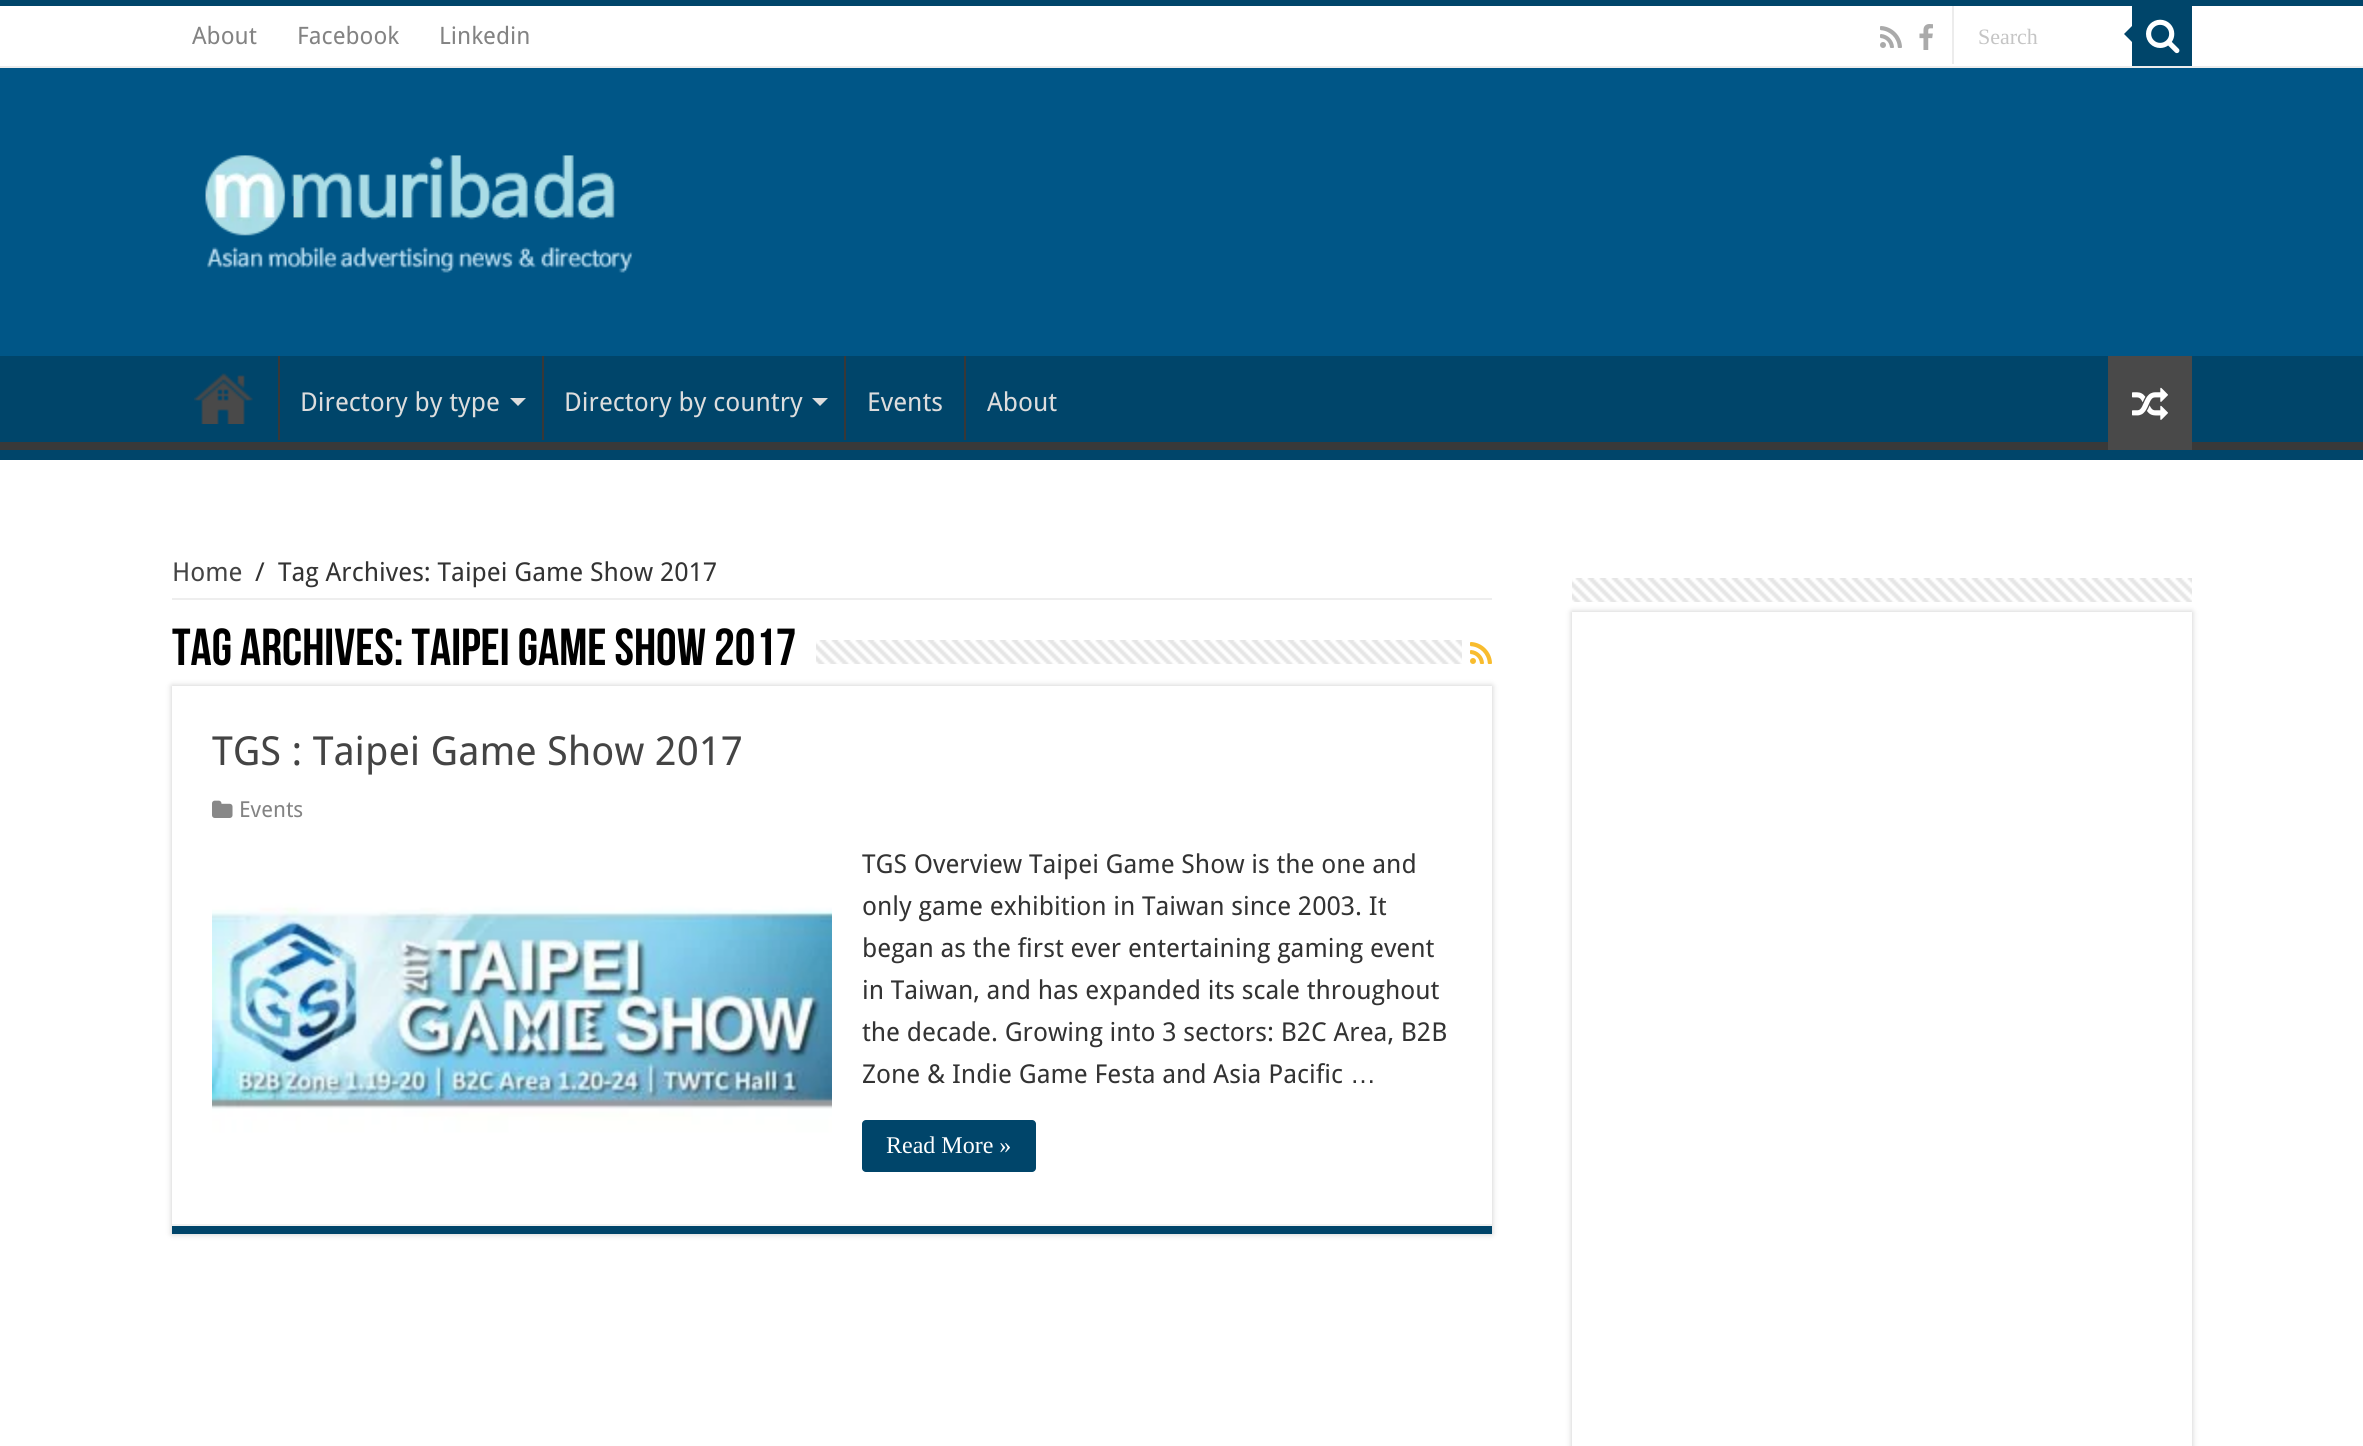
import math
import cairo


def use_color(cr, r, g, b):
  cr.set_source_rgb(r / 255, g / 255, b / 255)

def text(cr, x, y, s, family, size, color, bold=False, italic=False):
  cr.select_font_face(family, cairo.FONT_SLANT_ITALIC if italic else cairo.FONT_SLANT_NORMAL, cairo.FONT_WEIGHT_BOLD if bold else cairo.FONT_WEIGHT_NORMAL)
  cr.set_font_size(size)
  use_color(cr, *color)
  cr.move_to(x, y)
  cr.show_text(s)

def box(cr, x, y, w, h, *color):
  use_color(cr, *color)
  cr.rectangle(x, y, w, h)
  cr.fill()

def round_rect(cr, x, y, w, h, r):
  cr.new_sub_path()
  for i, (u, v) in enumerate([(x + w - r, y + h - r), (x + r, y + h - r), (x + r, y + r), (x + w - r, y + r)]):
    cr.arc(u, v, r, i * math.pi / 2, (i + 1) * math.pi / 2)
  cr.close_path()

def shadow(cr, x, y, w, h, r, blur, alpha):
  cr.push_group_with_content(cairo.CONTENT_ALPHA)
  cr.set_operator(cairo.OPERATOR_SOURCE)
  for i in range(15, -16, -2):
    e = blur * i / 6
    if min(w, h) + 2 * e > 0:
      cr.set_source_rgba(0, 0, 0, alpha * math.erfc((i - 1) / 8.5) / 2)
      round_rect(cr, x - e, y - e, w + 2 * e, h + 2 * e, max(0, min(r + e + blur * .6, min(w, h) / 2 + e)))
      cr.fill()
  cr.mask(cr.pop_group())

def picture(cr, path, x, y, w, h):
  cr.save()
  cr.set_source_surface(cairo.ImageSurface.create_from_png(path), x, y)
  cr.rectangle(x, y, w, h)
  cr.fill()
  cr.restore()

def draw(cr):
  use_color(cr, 255, 255, 255)
  cr.paint()
  box(cr, 0, 68, 2363, 288, 0, 86, 135)
  box(cr, 0, 0, 2363, 6, 0, 69, 106)
  box(cr, 0, 66, 2363, 2, 236, 236, 236)
  picture(cr, "img_01.png", 1880, 26, 22, 22)
  picture(cr, "img_02.png", 1919, 24, 14, 26)
  box(cr, 1952, 6, 2, 58, 236, 236, 236)
  box(cr, 2132, 6, 60, 60, 0, 69, 106)
  picture(cr, "img_03.png", 2146, 19, 34, 35)
  cr.new_path()
  cr.move_to(2132, 26)
  cr.line_to(2132, 42)
  cr.line_to(2124, 34)
  cr.close_path()
  cr.fill()
  picture(cr, "img_04.png", 205, 155, 428, 118)
  box(cr, 0, 356, 2363, 104, 0, 69, 106)
  cr.save()
  cr.rectangle(0, 356, 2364, 94)
  cr.clip()
  use_color(cr, 57, 57, 57)
  cr.set_fill_rule(cairo.FILL_RULE_EVEN_ODD)
  cr.new_path()
  cr.move_to(-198, 158)
  cr.line_to(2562, 158)
  cr.line_to(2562, 648)
  cr.line_to(-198, 648)
  cr.close_path()
  cr.move_to(-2, 344)
  cr.line_to(2362, 344)
  cr.curve_to(2363, 344, 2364, 345, 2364, 346)
  cr.line_to(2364, 440)
  cr.curve_to(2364, 441, 2363, 442, 2362, 442)
  cr.line_to(-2, 442)
  cr.curve_to(-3, 442, -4, 441, -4, 440)
  cr.line_to(-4, 346)
  cr.curve_to(-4, 345, -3, 344, -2, 344)
  cr.close_path()
  cr.fill()
  cr.restore()
  picture(cr, "img_05.png", 194, 373, 59, 51)
  box(cr, 278, 356, 2, 84, 56, 56, 56)
  use_color(cr, 221, 221, 221)
  cr.new_path()
  cr.move_to(510, 398)
  cr.line_to(526, 398)
  cr.line_to(518, 406)
  cr.close_path()
  cr.fill()
  box(cr, 542, 356, 2, 84, 56, 56, 56)
  use_color(cr, 221, 221, 221)
  cr.new_path()
  cr.move_to(812, 398)
  cr.line_to(828, 398)
  cr.line_to(820, 406)
  cr.close_path()
  cr.fill()
  box(cr, 844, 356, 2, 84, 56, 56, 56)
  box(cr, 964, 356, 2, 84, 56, 56, 56)
  box(cr, 2108, 356, 84, 94, 73, 73, 73)
  picture(cr, "img_06.png", 2132, 387, 36, 33)
  box(cr, 172, 598, 1320, 2, 238, 238, 238)
  picture(cr, "img_07.png", 816, 640, 646, 24)
  picture(cr, "img_08.png", 1470, 642, 22, 22)
  cr.save()
  cr.set_fill_rule(cairo.FILL_RULE_EVEN_ODD)
  cr.new_path()
  cr.move_to(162, 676)
  cr.line_to(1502, 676)
  cr.line_to(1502, 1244)
  cr.line_to(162, 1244)
  cr.close_path()
  cr.move_to(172, 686)
  cr.line_to(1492, 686)
  cr.line_to(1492, 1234)
  cr.line_to(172, 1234)
  cr.close_path()
  cr.clip()
  use_color(cr, 202, 202, 202)
  shadow(cr, 172, 686, 1320, 548, 0, 3, 1)
  cr.restore()
  box(cr, 172, 1226, 1320, 8, 0, 69, 106)
  box(cr, 172, 1224, 1320, 2, 242, 242, 242)
  picture(cr, "img_09.png", 212, 800, 21, 18)
  picture(cr, "img_10.png", 212, 844, 620, 330)
  use_color(cr, 0, 69, 106)
  round_rect(cr, 862, 1120, 174, 52, 4)
  cr.fill()
  picture(cr, "img_11.png", 1572, 578, 620, 24)
  cr.save()
  cr.set_fill_rule(cairo.FILL_RULE_EVEN_ODD)
  cr.new_path()
  cr.move_to(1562, 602)
  cr.line_to(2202, 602)
  cr.line_to(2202, 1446)
  cr.line_to(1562, 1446)
  cr.close_path()
  cr.move_to(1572, 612)
  cr.line_to(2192, 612)
  cr.line_to(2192, 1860)
  cr.line_to(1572, 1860)
  cr.close_path()
  cr.clip()
  use_color(cr, 202, 202, 202)
  shadow(cr, 1572, 612, 620, 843, 0, 3, 1)
  cr.restore()
  text(cr, 192, 44, "About", "Droid Sans", 24, (131, 131, 131))
  text(cr, 297, 44, "Facebook", "Droid Sans", 24, (131, 131, 131))
  text(cr, 439, 44, "Linkedin", "Droid Sans", 24, (131, 131, 131))
  text(cr, 1978, 44, "Search", "Liberation Serif", 22, (197, 197, 197))
  text(cr, 300, 411, "Directory by type", "Droid Sans", 26, (221, 221, 221))
  text(cr, 564, 411, "Directory by country", "Droid Sans", 26, (221, 221, 221))
  text(cr, 867, 411, "Events", "Droid Sans", 26, (221, 221, 221))
  text(cr, 987, 411, "About", "Droid Sans", 26, (221, 221, 221))
  text(cr, 172, 581, "Home", "Droid Sans", 26, (68, 68, 68))
  text(cr, 255, 581, "/", "Droid Sans", 26, (51, 51, 51))
  text(cr, 278, 581, "Tag Archives: Taipei Game Show 2017", "Droid Sans", 26, (51, 51, 51))
  text(cr, 172, 665, "Tag Archives: Taipei Game Show 2017", "Bebas Neue", 52, (0, 0, 0), bold=True)
  text(cr, 212, 765, "TGS : Taipei Game Show 2017", "Droid Sans", 40, (68, 68, 68))
  text(cr, 239, 817, "Events", "Droid Sans", 22, (131, 131, 131))
  text(cr, 862, 873, "TGS Overview Taipei Game Show is the one and", "Droid Sans", 26, (51, 51, 51))
  text(cr, 862, 915, "only game exhibition in Taiwan since 2003. It", "Droid Sans", 26, (51, 51, 51))
  text(cr, 862, 957, "began as the first ever entertaining gaming event", "Droid Sans", 26, (51, 51, 51))
  text(cr, 862, 999, "in Taiwan, and has expanded its scale throughout", "Droid Sans", 26, (51, 51, 51))
  text(cr, 862, 1041, "the decade. Growing into 3 sectors: B2C Area, B2B", "Droid Sans", 26, (51, 51, 51))
  text(cr, 862, 1083, "Zone & Indie Game Festa and Asia Pacific", "Droid Sans", 26, (51, 51, 51))
  text(cr, 1350, 1083, "…", "Liberation Sans", 26, (51, 51, 51))
  text(cr, 886, 1153, "Read More »", "Liberation Serif", 24, (255, 255, 255))


surface = cairo.ImageSurface(cairo.FORMAT_RGB24, 2363, 1446)
cr = cairo.Context(surface)
options = cairo.FontOptions()
options.set_hint_metrics(cairo.HINT_METRICS_OFF)
options.set_hint_style(cairo.HINT_STYLE_NONE)
cr.set_font_options(options)
cr.set_miter_limit(4)
draw(cr)
surface.write_to_png("out.png")
